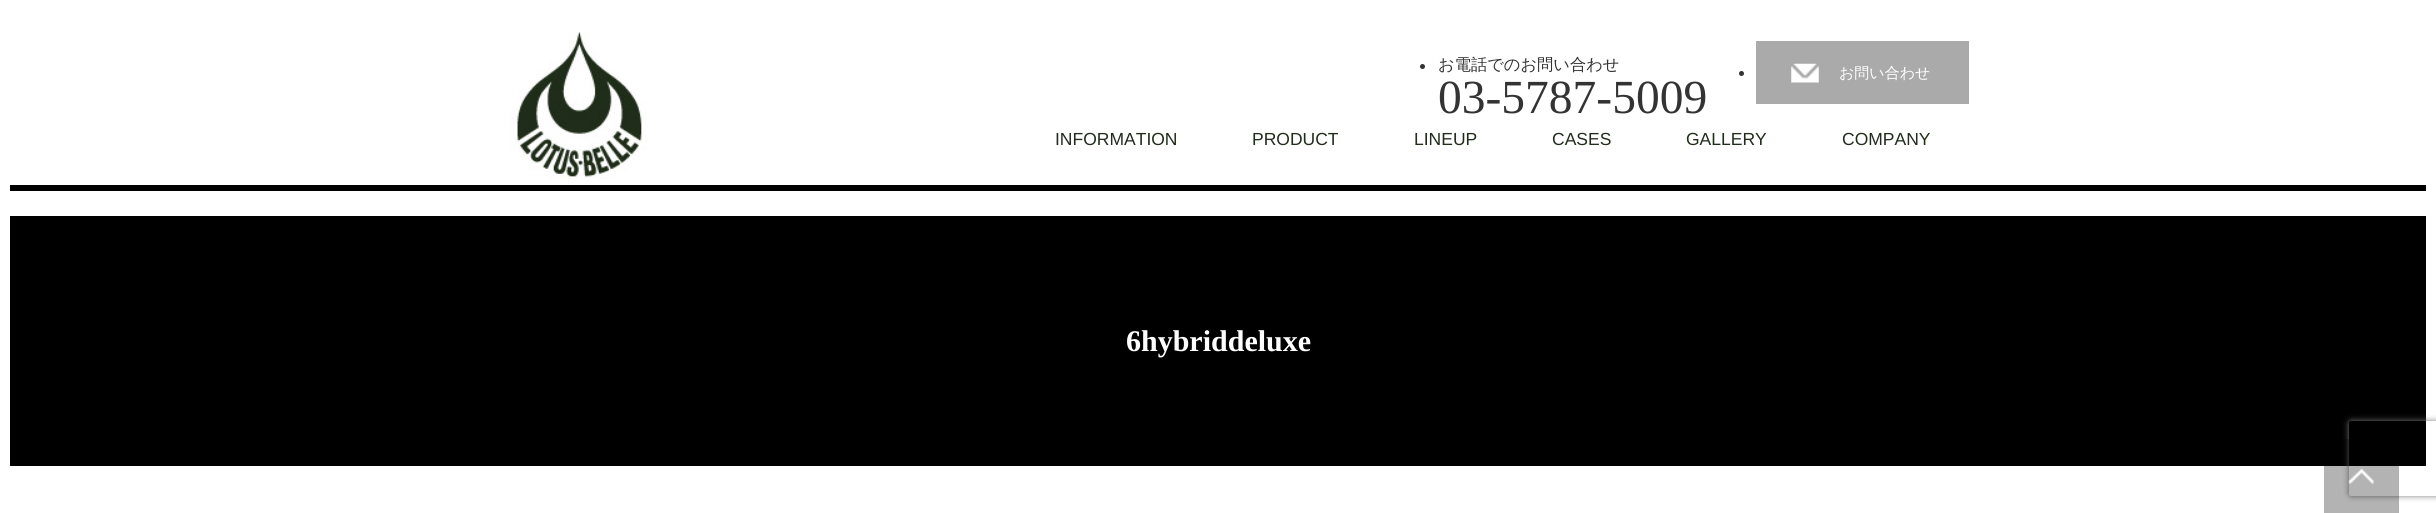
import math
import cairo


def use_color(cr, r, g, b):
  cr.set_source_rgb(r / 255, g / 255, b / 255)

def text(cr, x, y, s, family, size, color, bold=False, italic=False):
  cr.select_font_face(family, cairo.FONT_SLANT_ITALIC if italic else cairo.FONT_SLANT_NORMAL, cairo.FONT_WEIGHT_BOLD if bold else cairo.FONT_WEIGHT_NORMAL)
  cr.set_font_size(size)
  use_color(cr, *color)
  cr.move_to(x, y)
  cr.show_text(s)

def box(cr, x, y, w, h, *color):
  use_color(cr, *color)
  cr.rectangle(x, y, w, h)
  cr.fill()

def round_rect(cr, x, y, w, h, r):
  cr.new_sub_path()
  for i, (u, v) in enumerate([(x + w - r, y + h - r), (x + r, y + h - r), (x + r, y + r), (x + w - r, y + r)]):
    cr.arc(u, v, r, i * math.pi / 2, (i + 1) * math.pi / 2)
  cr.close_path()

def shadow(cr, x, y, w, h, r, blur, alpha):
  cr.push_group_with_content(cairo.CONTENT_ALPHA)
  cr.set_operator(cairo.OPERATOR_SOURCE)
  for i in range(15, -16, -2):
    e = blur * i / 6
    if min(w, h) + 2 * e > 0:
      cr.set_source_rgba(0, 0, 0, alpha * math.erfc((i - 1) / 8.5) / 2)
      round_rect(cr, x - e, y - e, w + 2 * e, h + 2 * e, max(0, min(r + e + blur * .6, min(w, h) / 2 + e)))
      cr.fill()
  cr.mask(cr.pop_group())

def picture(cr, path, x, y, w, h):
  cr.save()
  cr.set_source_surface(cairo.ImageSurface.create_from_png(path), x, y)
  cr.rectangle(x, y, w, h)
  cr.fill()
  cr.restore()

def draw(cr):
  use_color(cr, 255, 255, 255)
  cr.paint()
  box(cr, 10, 185, 2416, 6, 0, 0, 0)
  picture(cr, "img_01.png", 509, 31, 138, 148)
  use_color(cr, 51, 51, 51)
  cr.arc(1422.5, 66.5, 2.5, 0, 2 * math.pi)
  cr.fill()
  cr.arc(1741.5, 73.5, 2.5, 0, 2 * math.pi)
  cr.fill()
  box(cr, 1756, 41, 213, 63, 170, 170, 170)
  picture(cr, "img_02.png", 1791, 63, 28, 20)
  box(cr, 10, 216, 2416, 250, 0, 0, 0)
  cr.save()
  cr.set_fill_rule(cairo.FILL_RULE_EVEN_ODD)
  cr.new_path()
  cr.move_to(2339, 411)
  cr.line_to(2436, 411)
  cr.line_to(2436, 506)
  cr.line_to(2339, 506)
  cr.close_path()
  cr.move_to(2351.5, 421)
  cr.line_to(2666.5, 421)
  cr.curve_to(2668, 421, 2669, 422, 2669, 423.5)
  cr.line_to(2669, 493.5)
  cr.curve_to(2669, 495, 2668, 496, 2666.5, 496)
  cr.line_to(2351.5, 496)
  cr.curve_to(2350, 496, 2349, 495, 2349, 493.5)
  cr.line_to(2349, 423.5)
  cr.curve_to(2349, 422, 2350, 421, 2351.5, 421)
  cr.close_path()
  cr.clip()
  use_color(cr, 128, 128, 128)
  shadow(cr, 2349, 421, 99, 75, 2.5, 3, 1)
  cr.restore()
  cr.set_source_rgba(0, 0, 0, 0.3)
  cr.rectangle(2324, 439, 75, 74)
  cr.fill()
  picture(cr, "img_03.png", 2348, 468, 26, 16)
  text(cr, 1438, 70, "お電話でのお問い合わせ", "WenQuanYi Zen Hei Medium", 16.25, (51, 51, 51))
  text(cr, 1438, 113, "03-5787-5009", "Liberation Serif", 47.5, (51, 51, 51))
  text(cr, 1839, 78, "お問い合わせ", "WenQuanYi Zen Hei Medium", 15, (255, 255, 255))
  text(cr, 1055, 145, "INFORMATION", "Liberation Sans", 17.5, (32, 45, 27))
  text(cr, 1252, 145, "PRODUCT", "Liberation Sans", 17.5, (32, 45, 27))
  text(cr, 1414, 145, "LINEUP", "Liberation Sans", 17.5, (32, 45, 27))
  text(cr, 1552, 145, "CASES", "Liberation Sans", 17.5, (32, 45, 27))
  text(cr, 1686, 145, "GALLERY", "Liberation Sans", 17.5, (32, 45, 27))
  text(cr, 1842, 145, "COMPANY", "Liberation Sans", 17.5, (32, 45, 27))
  text(cr, 1126, 351, "6hybriddeluxe", "Liberation Serif", 30, (255, 255, 255), bold=True)


surface = cairo.ImageSurface(cairo.FORMAT_RGB24, 2436, 513)
cr = cairo.Context(surface)
options = cairo.FontOptions()
options.set_hint_metrics(cairo.HINT_METRICS_OFF)
options.set_hint_style(cairo.HINT_STYLE_NONE)
cr.set_font_options(options)
cr.set_miter_limit(4)
draw(cr)
surface.write_to_png("out.png")
